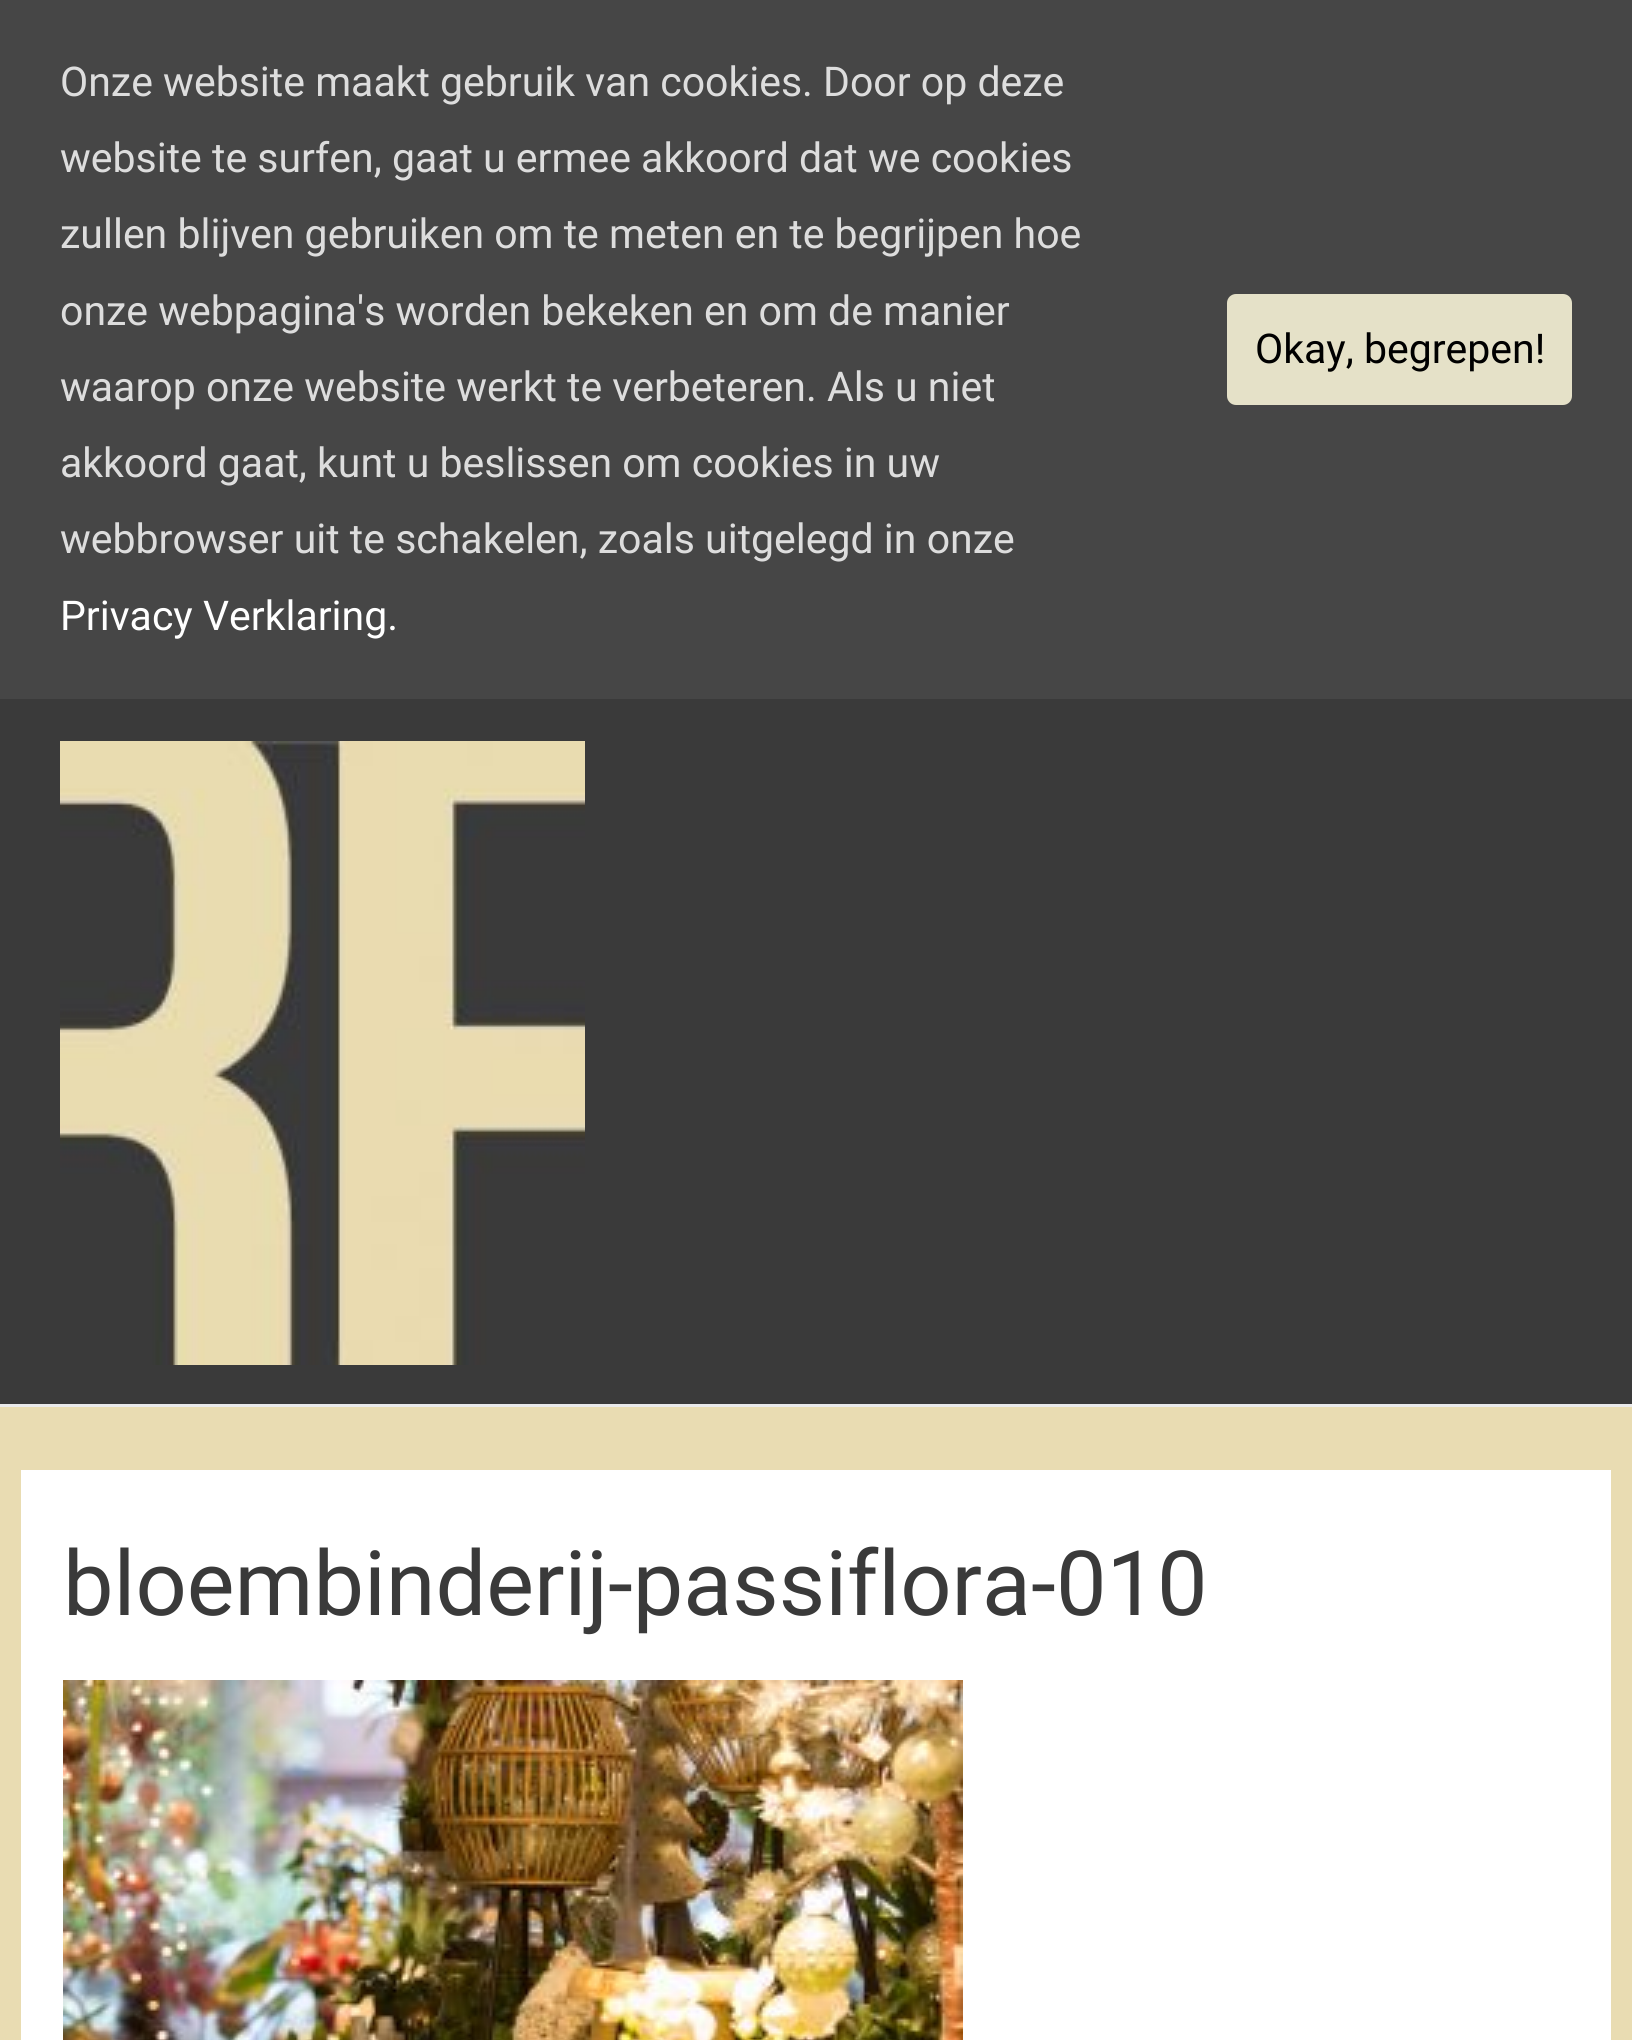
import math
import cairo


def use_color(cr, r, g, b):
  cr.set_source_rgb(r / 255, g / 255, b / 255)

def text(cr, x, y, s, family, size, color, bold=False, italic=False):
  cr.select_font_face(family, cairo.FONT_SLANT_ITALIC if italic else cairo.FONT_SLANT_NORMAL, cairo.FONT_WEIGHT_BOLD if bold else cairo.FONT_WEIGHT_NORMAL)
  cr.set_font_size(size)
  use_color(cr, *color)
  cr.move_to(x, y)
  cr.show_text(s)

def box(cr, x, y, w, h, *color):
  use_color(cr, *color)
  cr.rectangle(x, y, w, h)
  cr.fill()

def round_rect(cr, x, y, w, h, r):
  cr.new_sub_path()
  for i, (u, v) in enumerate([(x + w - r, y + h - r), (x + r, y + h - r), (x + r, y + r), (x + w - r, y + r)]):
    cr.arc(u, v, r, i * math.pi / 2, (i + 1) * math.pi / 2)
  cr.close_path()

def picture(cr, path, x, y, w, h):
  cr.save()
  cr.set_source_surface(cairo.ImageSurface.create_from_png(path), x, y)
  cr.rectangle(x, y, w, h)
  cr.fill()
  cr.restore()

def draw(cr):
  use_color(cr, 233, 220, 178)
  cr.paint()
  box(cr, 0, 0, 1632, 699, 70, 70, 70)
  use_color(cr, 229, 225, 200)
  round_rect(cr, 1227, 294, 345, 111, 9)
  cr.fill()
  box(cr, 0, 1404, 1632, 3, 234, 234, 234)
  box(cr, 0, 699, 1632, 705, 58, 58, 58)
  picture(cr, "img_01.png", 60, 741, 525, 624)
  box(cr, 21, 1470, 1590, 570, 255, 255, 255)
  picture(cr, "img_02.png", 63, 1680, 900, 360)
  text(cr, 60, 96, "Onze website maakt gebruik van cookies. Door op deze", "Roboto", 41, (221, 221, 221))
  text(cr, 60, 172, "website te surfen, gaat u ermee akkoord dat we cookies", "Roboto", 41, (221, 221, 221))
  text(cr, 60, 248, "zullen blijven gebruiken om te meten en te begrijpen hoe", "Roboto", 41, (221, 221, 221))
  text(cr, 60, 325, "onze webpagina's worden bekeken en om de manier", "Roboto", 41, (221, 221, 221))
  text(cr, 60, 401, "waarop onze website werkt te verbeteren. Als u niet", "Roboto", 41, (221, 221, 221))
  text(cr, 60, 477, "akkoord gaat, kunt u beslissen om cookies in uw", "Roboto", 41, (221, 221, 221))
  text(cr, 60, 553, "webbrowser uit te schakelen, zoals uitgelegd in onze", "Roboto", 41, (221, 221, 221))
  text(cr, 60, 630, "Privacy Verklaring.", "Roboto", 41, (255, 255, 255))
  text(cr, 1255, 363, "Okay, begrepen!", "Roboto", 41, (0, 0, 0))
  text(cr, 63, 1615, "bloembinderij-passiflora-010", "Roboto", 90, (58, 58, 58))


surface = cairo.ImageSurface(cairo.FORMAT_RGB24, 1632, 2040)
cr = cairo.Context(surface)
options = cairo.FontOptions()
options.set_hint_metrics(cairo.HINT_METRICS_OFF)
options.set_hint_style(cairo.HINT_STYLE_NONE)
cr.set_font_options(options)
cr.set_miter_limit(4)
draw(cr)
surface.write_to_png("out.png")
